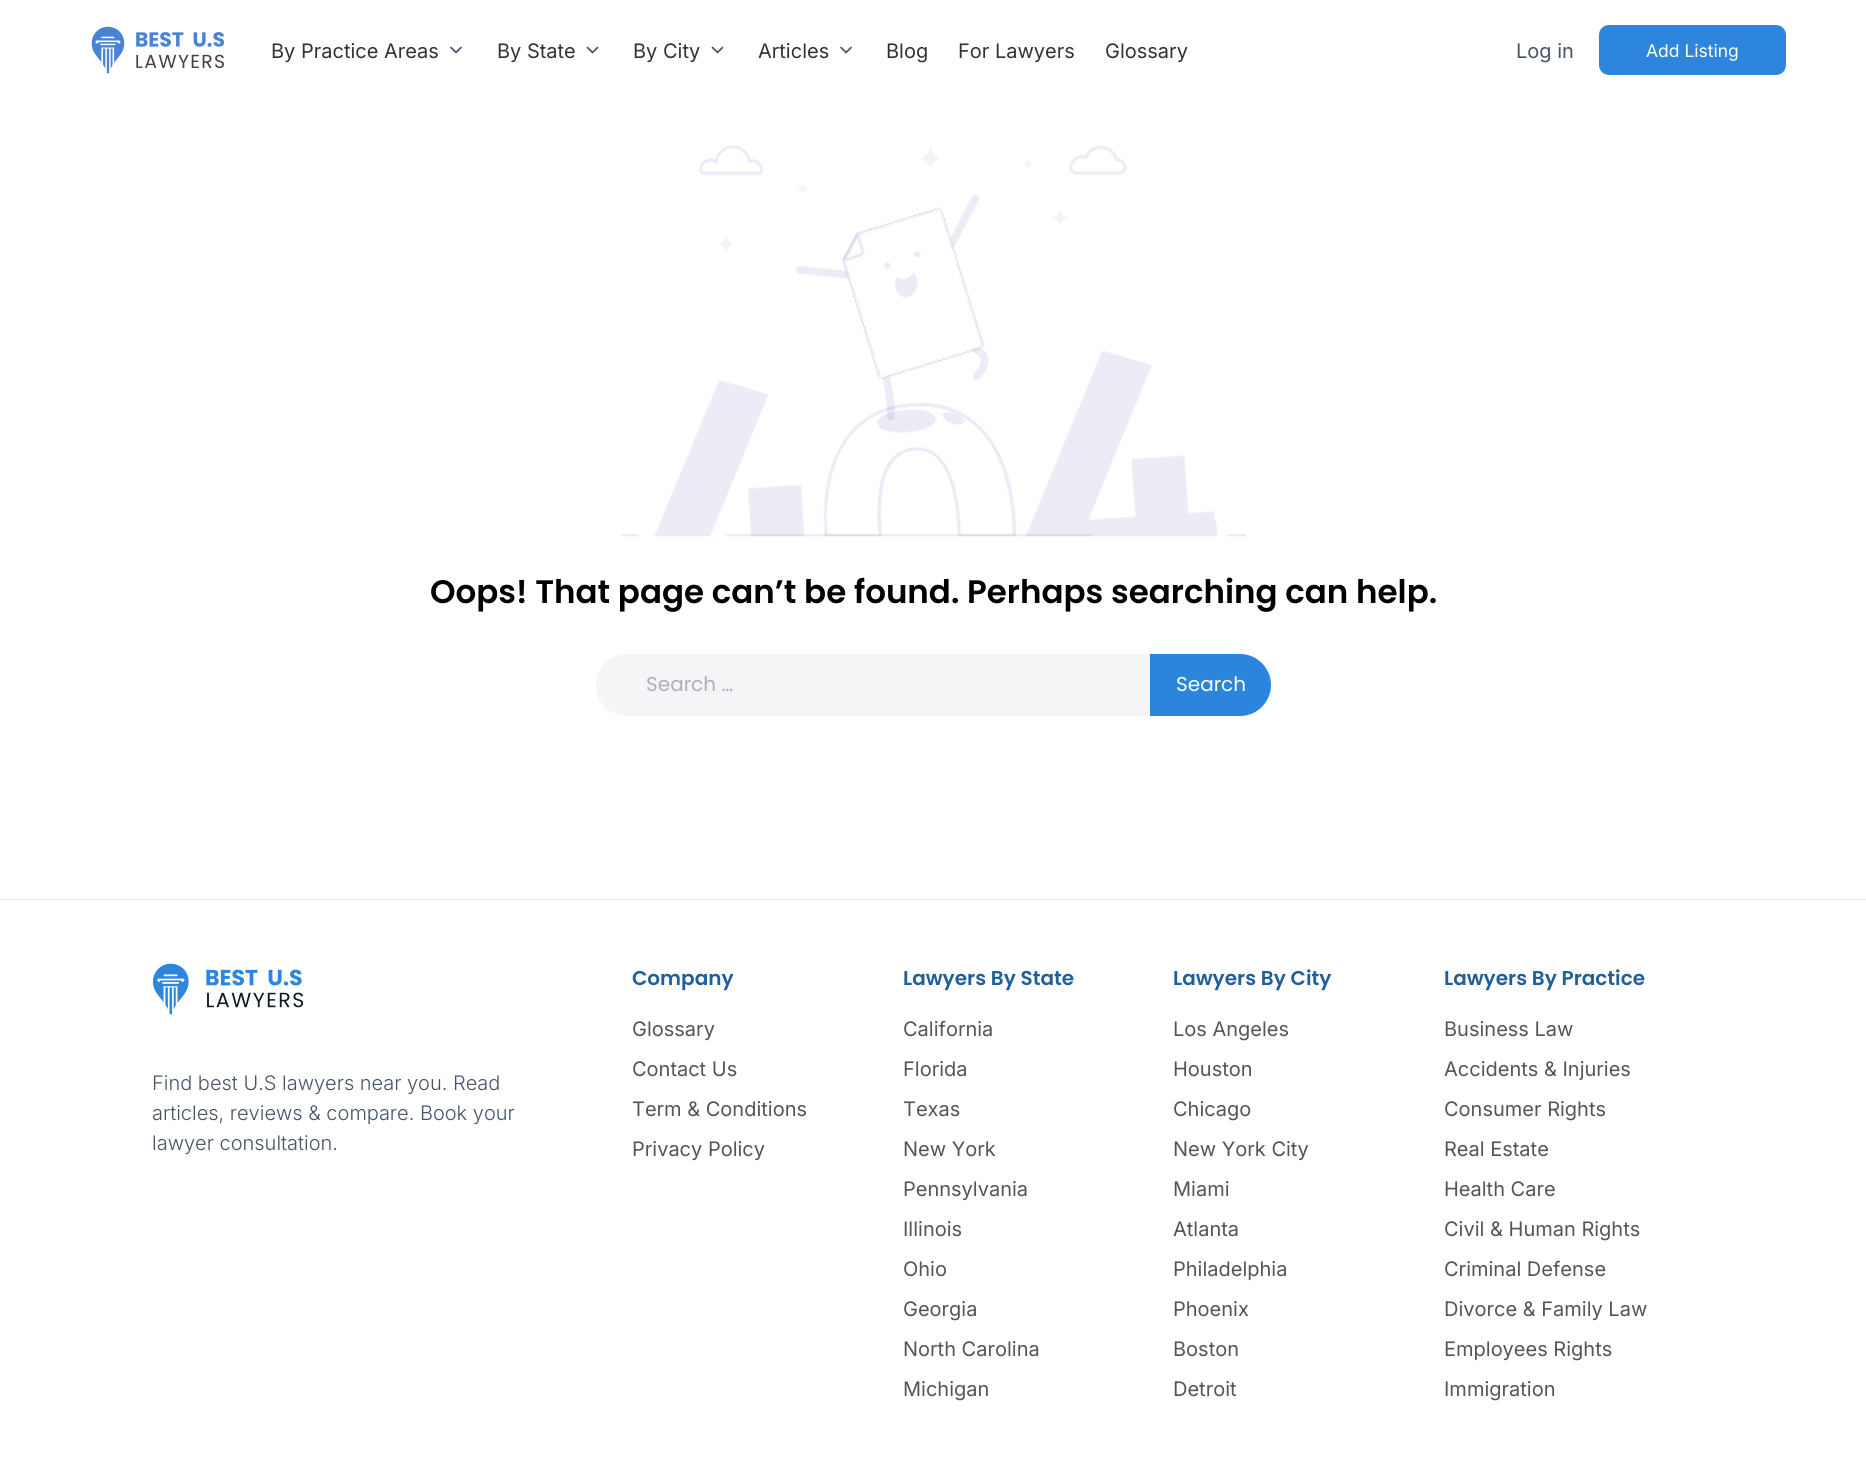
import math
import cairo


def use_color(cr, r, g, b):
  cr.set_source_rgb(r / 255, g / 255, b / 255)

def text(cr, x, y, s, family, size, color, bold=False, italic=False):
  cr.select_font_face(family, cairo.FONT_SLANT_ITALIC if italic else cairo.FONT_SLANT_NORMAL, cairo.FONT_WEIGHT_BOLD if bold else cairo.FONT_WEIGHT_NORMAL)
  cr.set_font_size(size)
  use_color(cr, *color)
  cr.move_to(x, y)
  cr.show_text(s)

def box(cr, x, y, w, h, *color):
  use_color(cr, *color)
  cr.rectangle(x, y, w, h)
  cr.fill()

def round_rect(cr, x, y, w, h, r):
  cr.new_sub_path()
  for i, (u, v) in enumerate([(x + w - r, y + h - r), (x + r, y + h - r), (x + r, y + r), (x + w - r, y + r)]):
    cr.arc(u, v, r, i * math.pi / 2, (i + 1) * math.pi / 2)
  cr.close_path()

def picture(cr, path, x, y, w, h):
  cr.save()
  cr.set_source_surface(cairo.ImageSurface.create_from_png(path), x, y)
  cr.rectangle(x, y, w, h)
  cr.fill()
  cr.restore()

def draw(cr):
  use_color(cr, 255, 255, 255)
  cr.paint()
  picture(cr, "img_01.png", 91, 26, 134, 48)
  cr.new_path()
  cr.move_to(451, 47.5)
  cr.line_to(456, 52.5)
  cr.line_to(461, 47.5)
  use_color(cr, 71, 84, 103)
  cr.set_line_width(1.7)
  cr.set_line_cap(cairo.LINE_CAP_ROUND)
  cr.set_line_join(cairo.LINE_JOIN_ROUND)
  cr.stroke()
  cr.new_path()
  cr.move_to(587.5, 47.5)
  cr.line_to(592.5, 52.5)
  cr.line_to(597.5, 47.5)
  cr.stroke()
  cr.new_path()
  cr.move_to(712.5, 47.5)
  cr.line_to(717.5, 52.5)
  cr.line_to(722.5, 47.5)
  cr.stroke()
  cr.new_path()
  cr.move_to(841, 47.5)
  cr.line_to(846, 52.5)
  cr.line_to(851, 47.5)
  cr.stroke()
  use_color(cr, 45, 133, 220)
  round_rect(cr, 1599, 25, 187, 50, 10)
  cr.fill()
  picture(cr, "img_02.png", 621, 145, 626, 392)
  use_color(cr, 245, 244, 247)
  round_rect(cr, 596, 654, 675, 62, 31)
  cr.fill()
  use_color(cr, 44, 133, 221)
  cr.new_path()
  cr.move_to(1150, 654)
  cr.line_to(1240, 654)
  cr.curve_to(1257, 654, 1271, 668, 1271, 685)
  cr.curve_to(1271, 702, 1257, 716, 1240, 716)
  cr.line_to(1150, 716)
  cr.close_path()
  cr.fill()
  box(cr, 0, 899, 1866, 1, 230, 230, 230)
  picture(cr, "img_03.png", 153, 963, 151, 52)
  text(cr, 271, 58, "By Practice Areas", "Inter", 20, (51, 51, 51))
  text(cr, 497, 58, "By State", "Inter", 20, (51, 51, 51))
  text(cr, 633, 58, "By City", "Inter", 20, (51, 51, 51))
  text(cr, 758, 58, "Articles", "Inter", 20, (51, 51, 51))
  text(cr, 886, 58, "Blog", "Inter", 20, (51, 51, 51))
  text(cr, 958, 58, "For Lawyers", "Inter", 20, (51, 51, 51))
  text(cr, 1105, 58, "Glossary", "Inter", 20, (51, 51, 51))
  text(cr, 1516, 58, "Log in", "Inter", 20, (71, 84, 103))
  text(cr, 1646, 57, "Add Listing", "Inter", 17.5, (255, 255, 255))
  text(cr, 430, 603, "Oops! That page can’t be found. Perhaps searching can help.", "Poppins SemiBold", 32.5, (0, 0, 0))
  text(cr, 646, 691, "Search …", "Poppins", 20, (175, 175, 188))
  text(cr, 1176, 691, "Search", "Poppins", 20, (255, 255, 255))
  text(cr, 152, 1090, "Find best U.S lawyers near you. Read", "Inter Light", 20, (71, 84, 103))
  text(cr, 152, 1120, "articles, reviews & compare. Book your", "Inter Light", 20, (71, 84, 103))
  text(cr, 152, 1150, "lawyer consultation.", "Inter Light", 20, (71, 84, 103))
  text(cr, 632, 985, "Company", "Poppins SemiBold", 20, (32, 94, 156))
  text(cr, 632, 1036, "Glossary", "Inter", 20, (85, 85, 85))
  text(cr, 632, 1076, "Contact Us", "Inter", 20, (85, 85, 85))
  text(cr, 632, 1116, "Term & Conditions", "Inter", 20, (85, 85, 85))
  text(cr, 632, 1156, "Privacy Policy", "Inter", 20, (85, 85, 85))
  text(cr, 903, 985, "Lawyers By State", "Poppins SemiBold", 20, (32, 94, 156))
  text(cr, 903, 1036, "California", "Inter", 20, (85, 85, 85))
  text(cr, 903, 1076, "Florida", "Inter", 20, (85, 85, 85))
  text(cr, 903, 1116, "Texas", "Inter", 20, (85, 85, 85))
  text(cr, 903, 1156, "New York", "Inter", 20, (85, 85, 85))
  text(cr, 903, 1196, "Pennsylvania", "Inter", 20, (85, 85, 85))
  text(cr, 903, 1236, "Illinois", "Inter", 20, (85, 85, 85))
  text(cr, 903, 1276, "Ohio", "Inter", 20, (85, 85, 85))
  text(cr, 903, 1316, "Georgia", "Inter", 20, (85, 85, 85))
  text(cr, 903, 1356, "North Carolina", "Inter", 20, (85, 85, 85))
  text(cr, 903, 1396, "Michigan", "Inter", 20, (85, 85, 85))
  text(cr, 1173, 985, "Lawyers By City", "Poppins SemiBold", 20, (32, 94, 156))
  text(cr, 1173, 1036, "Los Angeles", "Inter", 20, (85, 85, 85))
  text(cr, 1173, 1076, "Houston", "Inter", 20, (85, 85, 85))
  text(cr, 1173, 1116, "Chicago", "Inter", 20, (85, 85, 85))
  text(cr, 1173, 1156, "New York City", "Inter", 20, (85, 85, 85))
  text(cr, 1173, 1196, "Miami", "Inter", 20, (85, 85, 85))
  text(cr, 1173, 1236, "Atlanta", "Inter", 20, (85, 85, 85))
  text(cr, 1173, 1276, "Philadelphia", "Inter", 20, (85, 85, 85))
  text(cr, 1173, 1316, "Phoenix", "Inter", 20, (85, 85, 85))
  text(cr, 1173, 1356, "Boston", "Inter", 20, (85, 85, 85))
  text(cr, 1173, 1396, "Detroit", "Inter", 20, (85, 85, 85))
  text(cr, 1444, 985, "Lawyers By Practice", "Poppins SemiBold", 20, (32, 94, 156))
  text(cr, 1444, 1036, "Business Law", "Inter", 20, (85, 85, 85))
  text(cr, 1444, 1076, "Accidents & Injuries", "Inter", 20, (85, 85, 85))
  text(cr, 1444, 1116, "Consumer Rights", "Inter", 20, (85, 85, 85))
  text(cr, 1444, 1156, "Real Estate", "Inter", 20, (85, 85, 85))
  text(cr, 1444, 1196, "Health Care", "Inter", 20, (85, 85, 85))
  text(cr, 1444, 1236, "Civil & Human Rights", "Inter", 20, (85, 85, 85))
  text(cr, 1444, 1276, "Criminal Defense", "Inter", 20, (85, 85, 85))
  text(cr, 1444, 1316, "Divorce & Family Law", "Inter", 20, (85, 85, 85))
  text(cr, 1444, 1356, "Employees Rights", "Inter", 20, (85, 85, 85))
  text(cr, 1444, 1396, "Immigration", "Inter", 20, (85, 85, 85))


surface = cairo.ImageSurface(cairo.FORMAT_RGB24, 1866, 1470)
cr = cairo.Context(surface)
options = cairo.FontOptions()
options.set_hint_metrics(cairo.HINT_METRICS_OFF)
options.set_hint_style(cairo.HINT_STYLE_NONE)
cr.set_font_options(options)
cr.set_miter_limit(4)
draw(cr)
surface.write_to_png("out.png")
